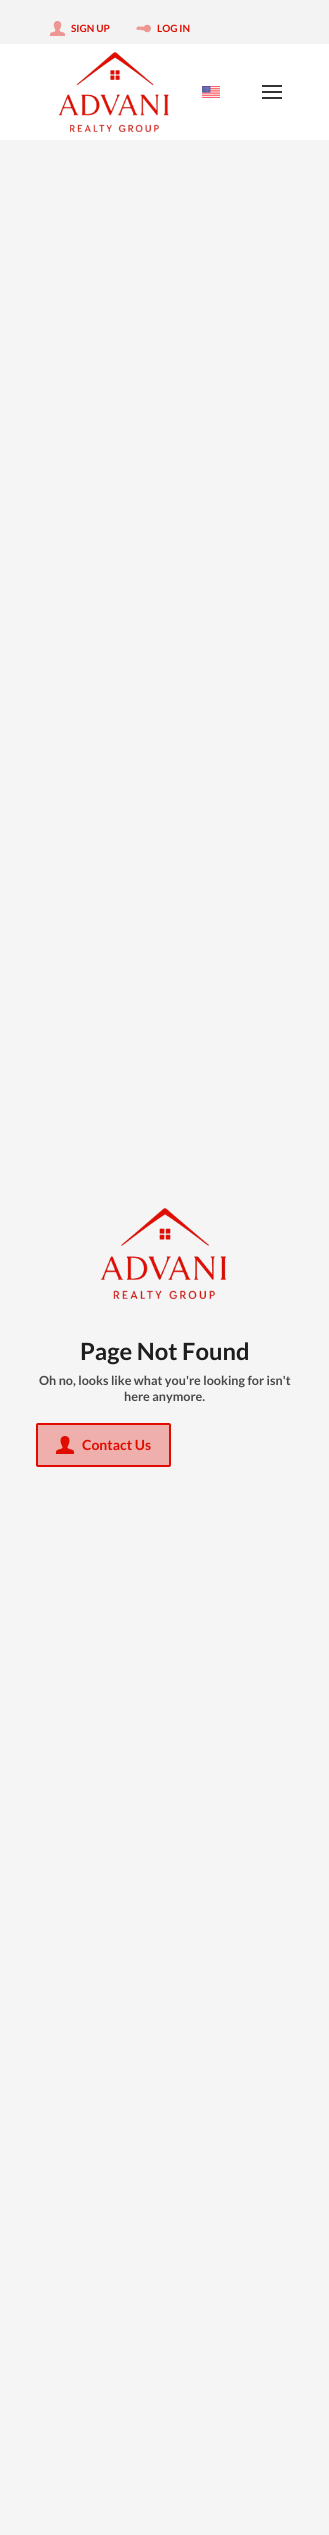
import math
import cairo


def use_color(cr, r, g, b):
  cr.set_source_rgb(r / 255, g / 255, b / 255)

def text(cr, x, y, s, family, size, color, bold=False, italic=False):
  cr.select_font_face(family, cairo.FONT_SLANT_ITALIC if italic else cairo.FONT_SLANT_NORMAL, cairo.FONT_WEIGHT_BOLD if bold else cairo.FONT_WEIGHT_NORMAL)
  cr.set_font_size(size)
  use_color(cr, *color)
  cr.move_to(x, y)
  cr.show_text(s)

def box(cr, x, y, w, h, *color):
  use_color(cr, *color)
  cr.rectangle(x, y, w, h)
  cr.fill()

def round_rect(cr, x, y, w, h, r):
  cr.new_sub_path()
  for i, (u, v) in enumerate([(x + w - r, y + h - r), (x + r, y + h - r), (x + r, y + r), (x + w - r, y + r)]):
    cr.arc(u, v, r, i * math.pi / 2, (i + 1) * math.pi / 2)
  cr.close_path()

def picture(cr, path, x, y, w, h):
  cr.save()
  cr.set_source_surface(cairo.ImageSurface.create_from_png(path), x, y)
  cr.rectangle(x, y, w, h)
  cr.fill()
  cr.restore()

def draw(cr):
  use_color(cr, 255, 255, 255)
  cr.paint()
  box(cr, 0, 0, 329, 44, 243, 243, 243)
  picture(cr, "img_01.png", 50, 21, 15, 15)
  picture(cr, "img_02.png", 136, 24, 15, 9)
  picture(cr, "img_03.png", 58, 52, 111, 80)
  picture(cr, "img_04.png", 202, 86, 18, 12)
  box(cr, 262, 85, 20, 2, 51, 51, 51)
  box(cr, 262, 91, 20, 2, 51, 51, 51)
  box(cr, 262, 97, 20, 2, 51, 51, 51)
  box(cr, 0, 140, 329, 2395, 245, 245, 245)
  picture(cr, "img_05.png", 100, 1208, 126, 91)
  use_color(cr, 239, 175, 172)
  round_rect(cr, 37, 1424, 133, 42, 1)
  cr.fill_preserve()
  use_color(cr, 224, 12, 0)
  cr.stroke()
  picture(cr, "img_06.png", 56, 1436, 18, 18)
  text(cr, 71, 32, "SIGN UP", "Lato", 10, (224, 12, 0), bold=True)
  text(cr, 157, 32, "LOG IN", "Lato", 10, (224, 12, 0), bold=True)
  text(cr, 80, 1360, "Page Not Found", "Lato", 23.75, (30, 30, 30), bold=True)
  text(cr, 39, 1385, "Oh no, looks like what you're looking for isn't", "Lato", 12.6, (73, 73, 73), bold=True)
  text(cr, 124, 1401, "here anymore.", "Lato", 12.6, (73, 73, 73), bold=True)
  text(cr, 82, 1450, "Contact Us", "Lato", 14, (224, 12, 0), bold=True)


surface = cairo.ImageSurface(cairo.FORMAT_RGB24, 329, 2535)
cr = cairo.Context(surface)
options = cairo.FontOptions()
options.set_hint_metrics(cairo.HINT_METRICS_OFF)
options.set_hint_style(cairo.HINT_STYLE_NONE)
cr.set_font_options(options)
cr.set_miter_limit(4)
draw(cr)
surface.write_to_png("out.png")
